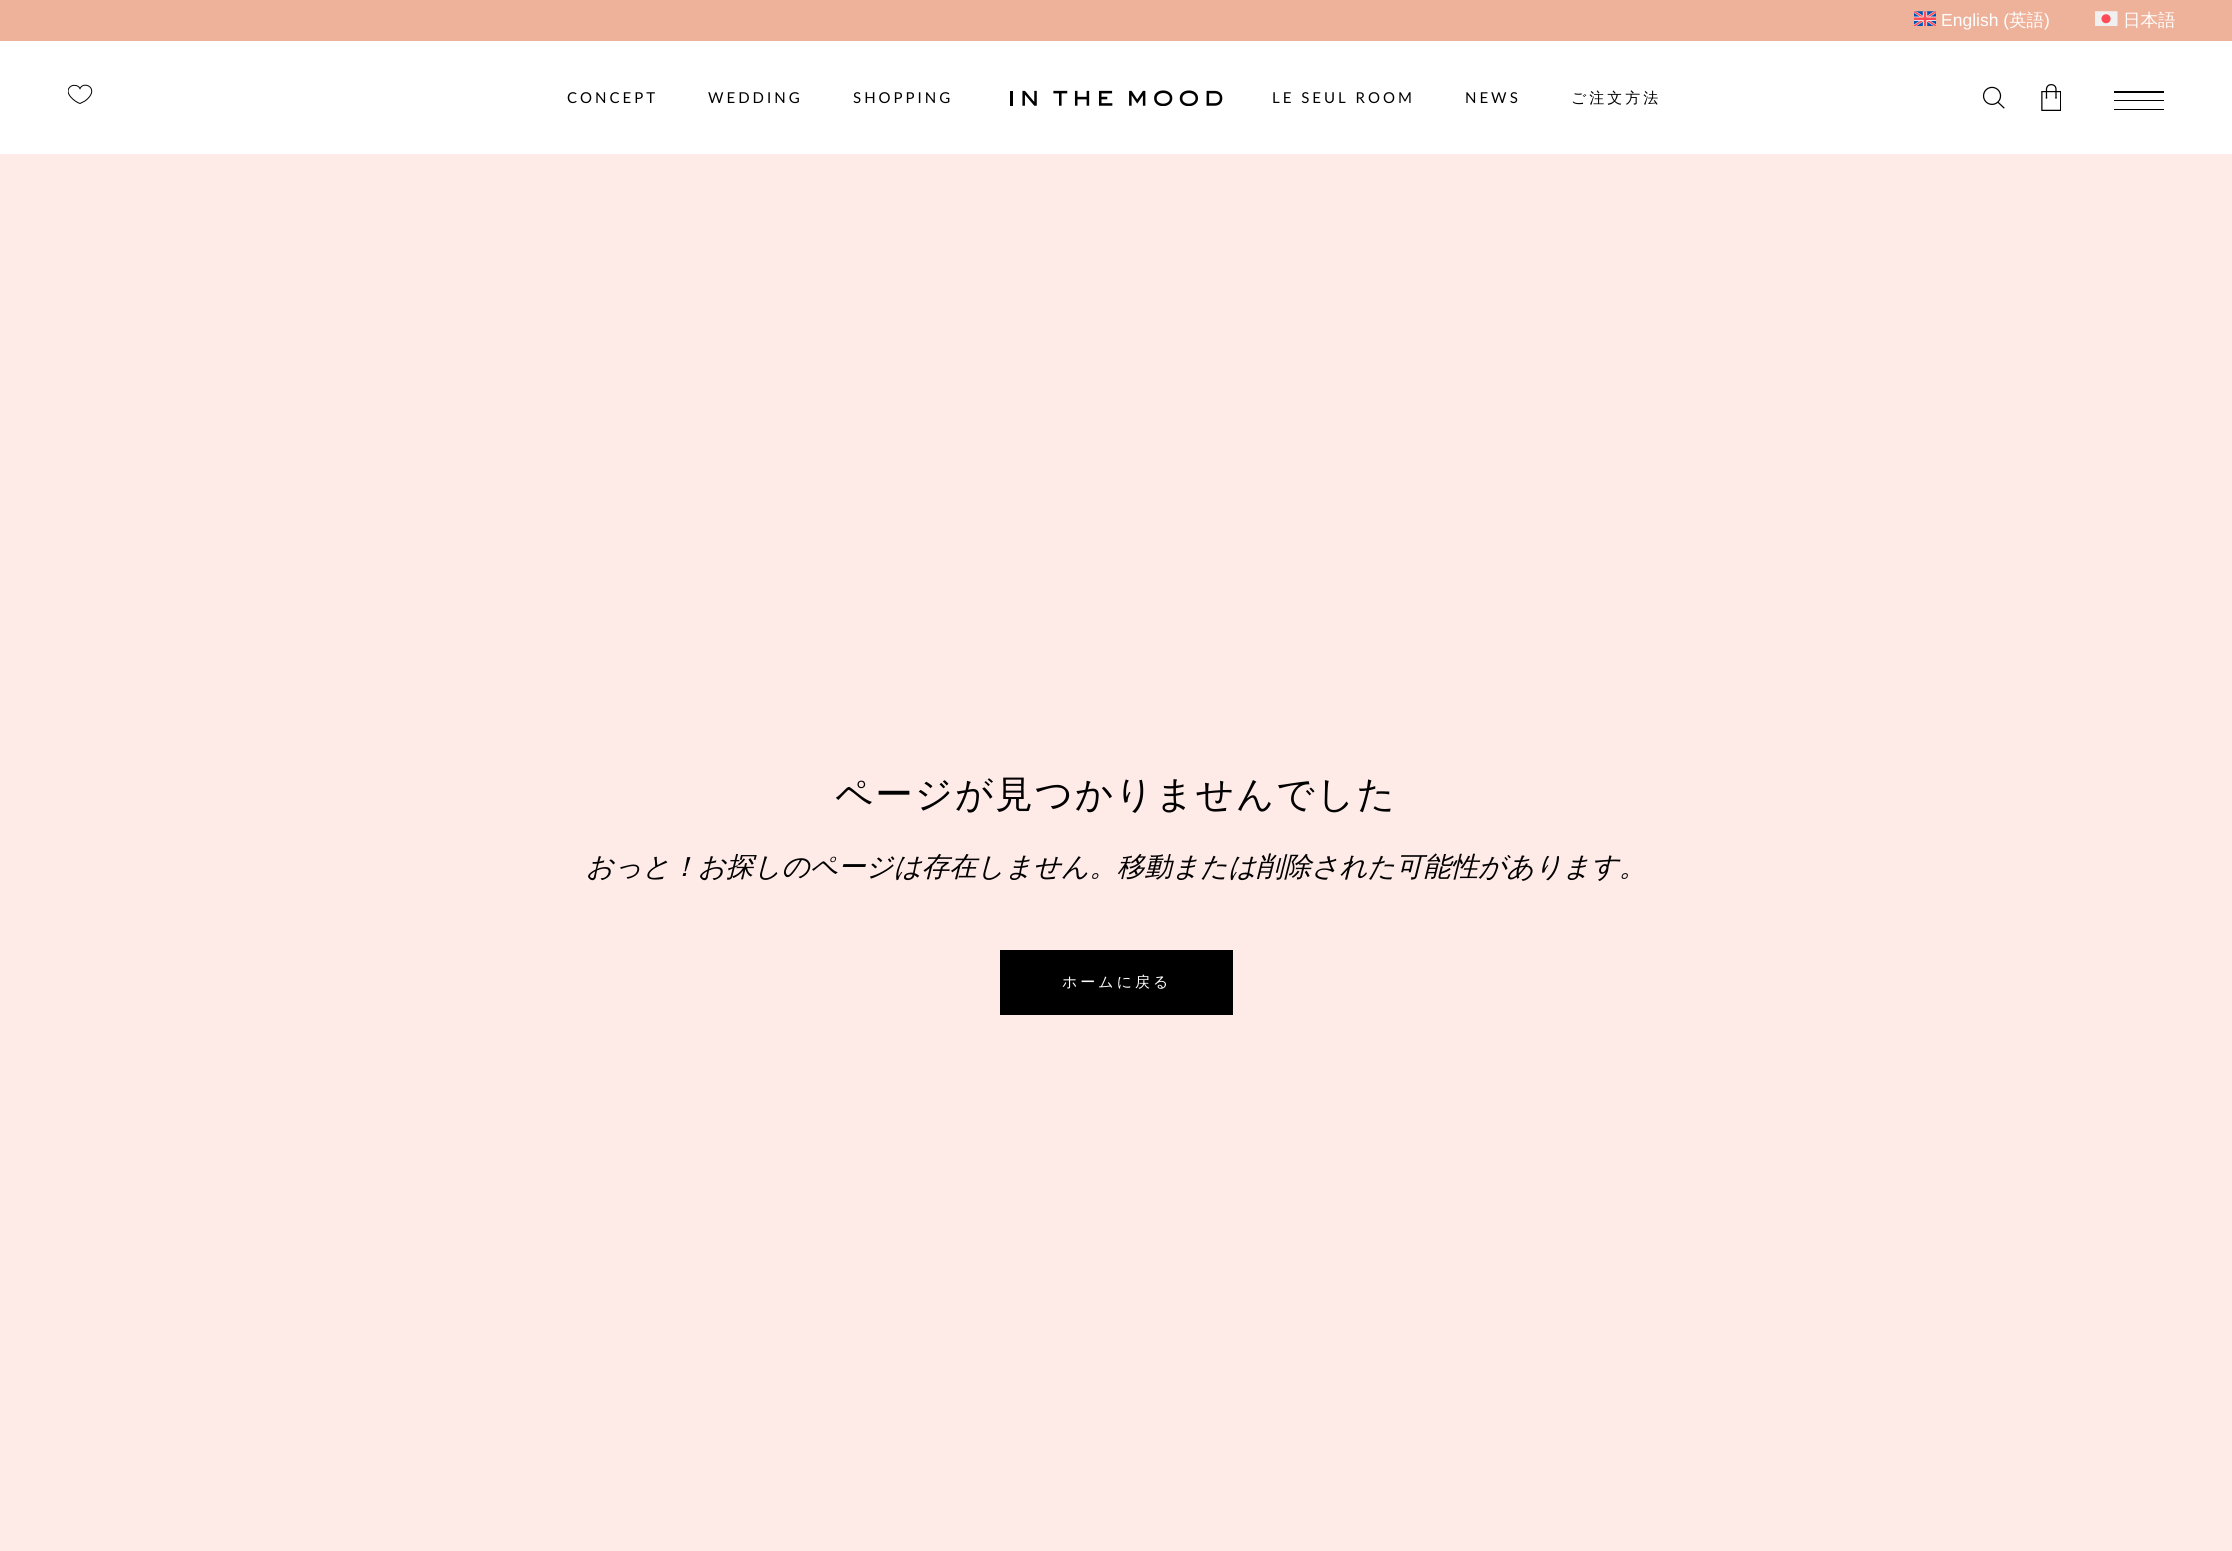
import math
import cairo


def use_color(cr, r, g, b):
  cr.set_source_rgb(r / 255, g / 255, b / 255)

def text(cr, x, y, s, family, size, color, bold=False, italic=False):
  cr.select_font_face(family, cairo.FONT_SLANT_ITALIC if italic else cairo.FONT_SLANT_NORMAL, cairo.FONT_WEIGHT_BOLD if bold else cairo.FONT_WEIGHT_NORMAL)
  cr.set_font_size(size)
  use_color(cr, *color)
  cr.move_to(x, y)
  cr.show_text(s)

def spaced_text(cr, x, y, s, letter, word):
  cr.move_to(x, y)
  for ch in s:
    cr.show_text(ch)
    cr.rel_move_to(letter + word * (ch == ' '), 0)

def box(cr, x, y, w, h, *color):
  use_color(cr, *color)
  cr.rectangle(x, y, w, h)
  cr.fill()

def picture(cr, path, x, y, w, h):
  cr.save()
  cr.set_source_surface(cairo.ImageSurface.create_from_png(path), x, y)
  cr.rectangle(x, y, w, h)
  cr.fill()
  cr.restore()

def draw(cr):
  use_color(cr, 254, 234, 231)
  cr.paint()
  box(cr, 0, 0, 2232, 41, 238, 177, 154)
  picture(cr, "img_01.png", 1914, 11, 22, 15)
  picture(cr, "img_02.png", 2095, 11, 23, 15)
  box(cr, 0, 41, 2232, 113, 255, 255, 255)
  cr.save()
  cr.rectangle(68, 84, 25, 21)
  cr.clip()
  cr.new_path()
  cr.move_to(80, 103.5)
  cr.curve_to(75, 102, 63.5, 93, 70, 87)
  cr.curve_to(71.5, 85.5, 73.5, 85, 75.5, 85.5)
  cr.curve_to(77, 85.5, 79, 86.5, 80, 88.5)
  cr.curve_to(84, 80, 101, 89, 85, 101)
  cr.close_path()
  use_color(cr, 0, 0, 0)
  cr.set_line_width(1)
  cr.stroke()
  cr.restore()
  picture(cr, "img_03.png", 1010, 90, 213, 16)
  picture(cr, "img_04.png", 1982, 86, 23, 23)
  picture(cr, "img_05.png", 2041, 84, 20, 27)
  box(cr, 2114, 91, 50, 2, 0, 0, 0)
  box(cr, 2114, 100, 50, 1, 0, 0, 0)
  box(cr, 2114, 109, 50, 1, 0, 0, 0)
  box(cr, 1000, 950, 233, 65, 0, 0, 0)
  text(cr, 1941, 26, "English (", "Liberation Sans", 17.5, (255, 255, 255))
  text(cr, 2009, 26, "英語", "WenQuanYi Zen Hei Medium", 17.5, (255, 255, 255))
  text(cr, 2044, 26, ")", "Liberation Sans", 17.5, (255, 255, 255))
  text(cr, 2123, 26, "日本語", "WenQuanYi Zen Hei Medium", 17.5, (255, 255, 255))
  cr.select_font_face("Lato")
  cr.set_font_size(15)
  use_color(cr, 0, 0, 0)
  spaced_text(cr, 567, 103, "CONCEPT", 3, 0)
  spaced_text(cr, 708, 103, "WEDDING", 3, 0)
  spaced_text(cr, 853, 103, "SHOPPING", 3, 0)
  spaced_text(cr, 1272, 103, "LE SEUL ROOM", 3, 0)
  spaced_text(cr, 1465, 103, "NEWS", 3, 0)
  cr.select_font_face("WenQuanYi Zen Hei Medium")
  spaced_text(cr, 1571, 103, "ご注文方法", 3, 0)
  cr.set_font_size(37.5)
  spaced_text(cr, 835, 807, "ページが見つかりませんでした", 1.9, 0)
  text(cr, 586, 876, "おっと！お探しのページは存在しません。移動または削除された可能性があります。", "WenQuanYi Zen Hei Medium", 27.5, (0, 0, 0), italic=True)
  cr.select_font_face("WenQuanYi Zen Hei Medium")
  cr.set_font_size(15)
  use_color(cr, 255, 255, 255)
  spaced_text(cr, 1062, 987, "ホームに戻る", 3, 0)


surface = cairo.ImageSurface(cairo.FORMAT_RGB24, 2232, 1551)
cr = cairo.Context(surface)
options = cairo.FontOptions()
options.set_hint_metrics(cairo.HINT_METRICS_OFF)
options.set_hint_style(cairo.HINT_STYLE_NONE)
cr.set_font_options(options)
cr.set_miter_limit(4)
draw(cr)
surface.write_to_png("out.png")
